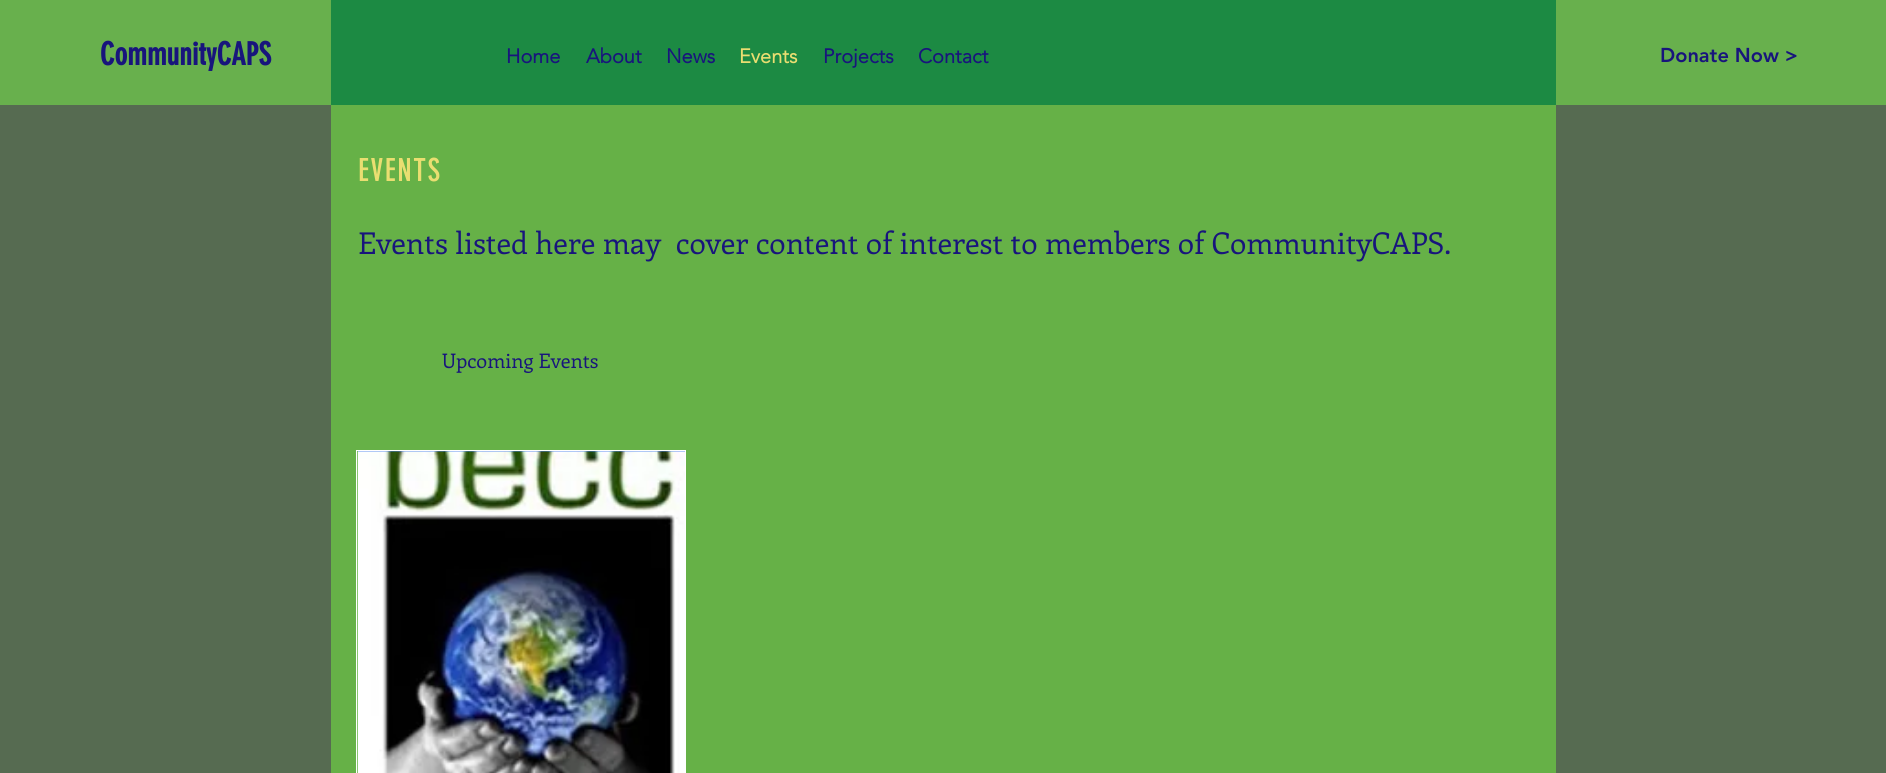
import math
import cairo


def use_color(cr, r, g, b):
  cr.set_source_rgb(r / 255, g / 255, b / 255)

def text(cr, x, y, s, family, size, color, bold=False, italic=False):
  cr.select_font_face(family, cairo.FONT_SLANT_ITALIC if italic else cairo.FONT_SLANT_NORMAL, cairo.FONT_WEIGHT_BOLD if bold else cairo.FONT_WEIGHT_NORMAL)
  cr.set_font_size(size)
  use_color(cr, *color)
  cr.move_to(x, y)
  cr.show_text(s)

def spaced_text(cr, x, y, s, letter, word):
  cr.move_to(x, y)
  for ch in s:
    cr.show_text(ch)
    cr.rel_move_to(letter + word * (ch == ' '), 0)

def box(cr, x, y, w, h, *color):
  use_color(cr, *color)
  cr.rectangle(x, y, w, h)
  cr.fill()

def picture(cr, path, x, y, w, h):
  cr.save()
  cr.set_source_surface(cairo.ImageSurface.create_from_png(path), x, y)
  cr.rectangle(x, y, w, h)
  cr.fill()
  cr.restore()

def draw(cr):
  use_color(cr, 86, 107, 81)
  cr.paint()
  box(cr, 0, 0, 1886, 105, 104, 176, 77)
  box(cr, 331, 0, 1225, 105, 28, 138, 67)
  box(cr, 331, 105, 1225, 668, 102, 177, 71)
  cr.rectangle(356.5, 450.5, 329, 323)
  use_color(cr, 255, 255, 255)
  cr.set_line_width(1)
  cr.stroke()
  box(cr, 358, 451, 327, 1, 77, 130, 239)
  picture(cr, "img_01.png", 357, 451, 328, 322)
  text(cr, 100, 65, "CommunityCAPS", "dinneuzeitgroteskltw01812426", 31.25, (24, 21, 124), bold=True)
  text(cr, 506, 63, "Home", "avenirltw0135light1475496", 20, (24, 21, 124), bold=True)
  text(cr, 586, 63, "About", "avenirltw0135light1475496", 20, (24, 21, 124), bold=True)
  text(cr, 666, 63, "News", "avenirltw0135light1475496", 20, (24, 21, 124), bold=True)
  text(cr, 739, 63, "Events", "avenirltw0135light1475496", 20, (234, 222, 113), bold=True)
  text(cr, 823, 63, "Projects", "avenirltw0135light1475496", 20, (24, 21, 124), bold=True)
  text(cr, 918, 63, "Contact", "avenirltw0135light1475496", 20, (24, 21, 124), bold=True)
  text(cr, 1660, 62, "Donate Now >", "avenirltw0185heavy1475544 Black", 20, (24, 21, 124))
  cr.select_font_face("dinneuzeitgroteskltw01812426")
  cr.set_font_size(31.25)
  use_color(cr, 234, 222, 113)
  spaced_text(cr, 358, 181, "EVENTS", 1.5, 0)
  text(cr, 358, 254, "Events listed here may  cover content of interest to members of CommunityCAPS.", "Enriqueta", 30, (24, 21, 124))
  text(cr, 442, 368, "Upcoming Events", "Enriqueta", 20, (24, 21, 124))


surface = cairo.ImageSurface(cairo.FORMAT_RGB24, 1886, 773)
cr = cairo.Context(surface)
options = cairo.FontOptions()
options.set_hint_metrics(cairo.HINT_METRICS_OFF)
options.set_hint_style(cairo.HINT_STYLE_NONE)
cr.set_font_options(options)
cr.set_miter_limit(4)
draw(cr)
surface.write_to_png("out.png")
